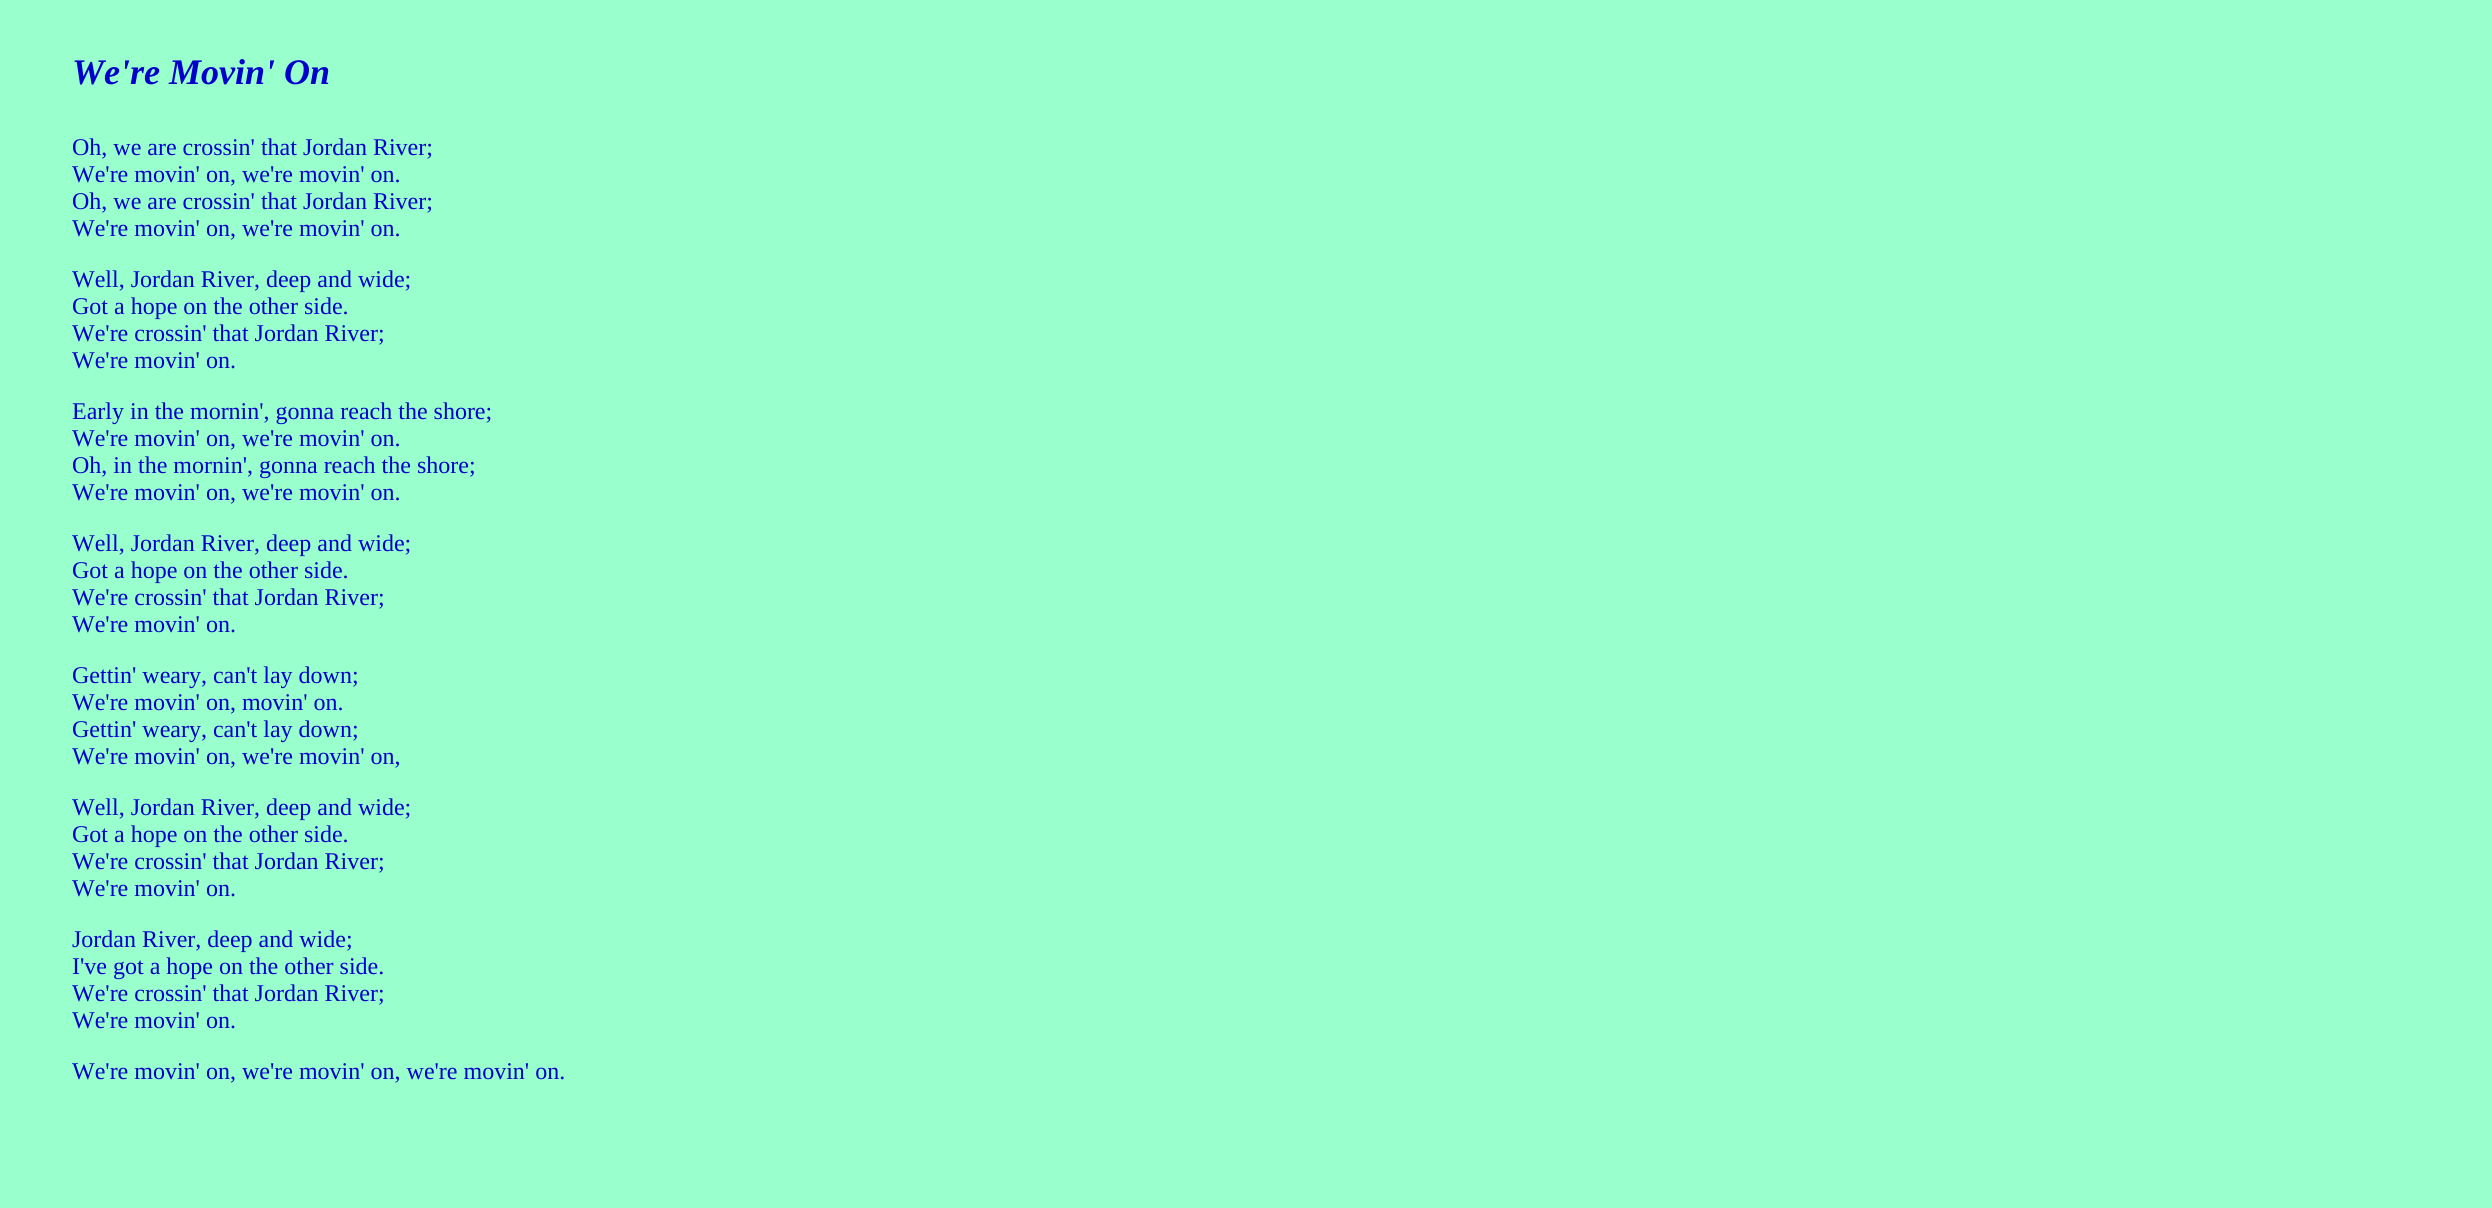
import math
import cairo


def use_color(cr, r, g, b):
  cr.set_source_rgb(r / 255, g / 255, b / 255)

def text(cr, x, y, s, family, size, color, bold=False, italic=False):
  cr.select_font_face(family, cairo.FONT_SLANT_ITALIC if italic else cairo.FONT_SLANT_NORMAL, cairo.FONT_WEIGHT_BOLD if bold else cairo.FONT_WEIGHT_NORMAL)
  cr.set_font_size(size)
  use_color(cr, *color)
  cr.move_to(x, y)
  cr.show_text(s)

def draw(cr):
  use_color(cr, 153, 255, 204)
  cr.paint()
  text(cr, 72, 84, "We're Movin' On", "Liberation Serif", 36, (0, 0, 204), bold=True, italic=True)
  text(cr, 72, 155, "Oh, we are crossin' that Jordan River;", "Liberation Serif", 24, (0, 0, 204))
  text(cr, 72, 182, "We're movin' on, we're movin' on.", "Liberation Serif", 24, (0, 0, 204))
  text(cr, 72, 209, "Oh, we are crossin' that Jordan River;", "Liberation Serif", 24, (0, 0, 204))
  text(cr, 72, 236, "We're movin' on, we're movin' on.", "Liberation Serif", 24, (0, 0, 204))
  text(cr, 72, 287, "Well, Jordan River, deep and wide;", "Liberation Serif", 24, (0, 0, 204))
  text(cr, 72, 314, "Got a hope on the other side.", "Liberation Serif", 24, (0, 0, 204))
  text(cr, 72, 341, "We're crossin' that Jordan River;", "Liberation Serif", 24, (0, 0, 204))
  text(cr, 72, 368, "We're movin' on.", "Liberation Serif", 24, (0, 0, 204))
  text(cr, 72, 419, "Early in the mornin', gonna reach the shore;", "Liberation Serif", 24, (0, 0, 204))
  text(cr, 72, 446, "We're movin' on, we're movin' on.", "Liberation Serif", 24, (0, 0, 204))
  text(cr, 72, 473, "Oh, in the mornin', gonna reach the shore;", "Liberation Serif", 24, (0, 0, 204))
  text(cr, 72, 500, "We're movin' on, we're movin' on.", "Liberation Serif", 24, (0, 0, 204))
  text(cr, 72, 551, "Well, Jordan River, deep and wide;", "Liberation Serif", 24, (0, 0, 204))
  text(cr, 72, 578, "Got a hope on the other side.", "Liberation Serif", 24, (0, 0, 204))
  text(cr, 72, 605, "We're crossin' that Jordan River;", "Liberation Serif", 24, (0, 0, 204))
  text(cr, 72, 632, "We're movin' on.", "Liberation Serif", 24, (0, 0, 204))
  text(cr, 72, 683, "Gettin' weary, can't lay down;", "Liberation Serif", 24, (0, 0, 204))
  text(cr, 72, 710, "We're movin' on, movin' on.", "Liberation Serif", 24, (0, 0, 204))
  text(cr, 72, 737, "Gettin' weary, can't lay down;", "Liberation Serif", 24, (0, 0, 204))
  text(cr, 72, 764, "We're movin' on, we're movin' on,", "Liberation Serif", 24, (0, 0, 204))
  text(cr, 72, 815, "Well, Jordan River, deep and wide;", "Liberation Serif", 24, (0, 0, 204))
  text(cr, 72, 842, "Got a hope on the other side.", "Liberation Serif", 24, (0, 0, 204))
  text(cr, 72, 869, "We're crossin' that Jordan River;", "Liberation Serif", 24, (0, 0, 204))
  text(cr, 72, 896, "We're movin' on.", "Liberation Serif", 24, (0, 0, 204))
  text(cr, 72, 947, "Jordan River, deep and wide;", "Liberation Serif", 24, (0, 0, 204))
  text(cr, 72, 974, "I've got a hope on the other side.", "Liberation Serif", 24, (0, 0, 204))
  text(cr, 72, 1001, "We're crossin' that Jordan River;", "Liberation Serif", 24, (0, 0, 204))
  text(cr, 72, 1028, "We're movin' on.", "Liberation Serif", 24, (0, 0, 204))
  text(cr, 72, 1079, "We're movin' on, we're movin' on, we're movin' on.", "Liberation Serif", 24, (0, 0, 204))


surface = cairo.ImageSurface(cairo.FORMAT_RGB24, 2492, 1208)
cr = cairo.Context(surface)
options = cairo.FontOptions()
options.set_hint_metrics(cairo.HINT_METRICS_OFF)
options.set_hint_style(cairo.HINT_STYLE_NONE)
cr.set_font_options(options)
cr.set_miter_limit(4)
draw(cr)
surface.write_to_png("out.png")
